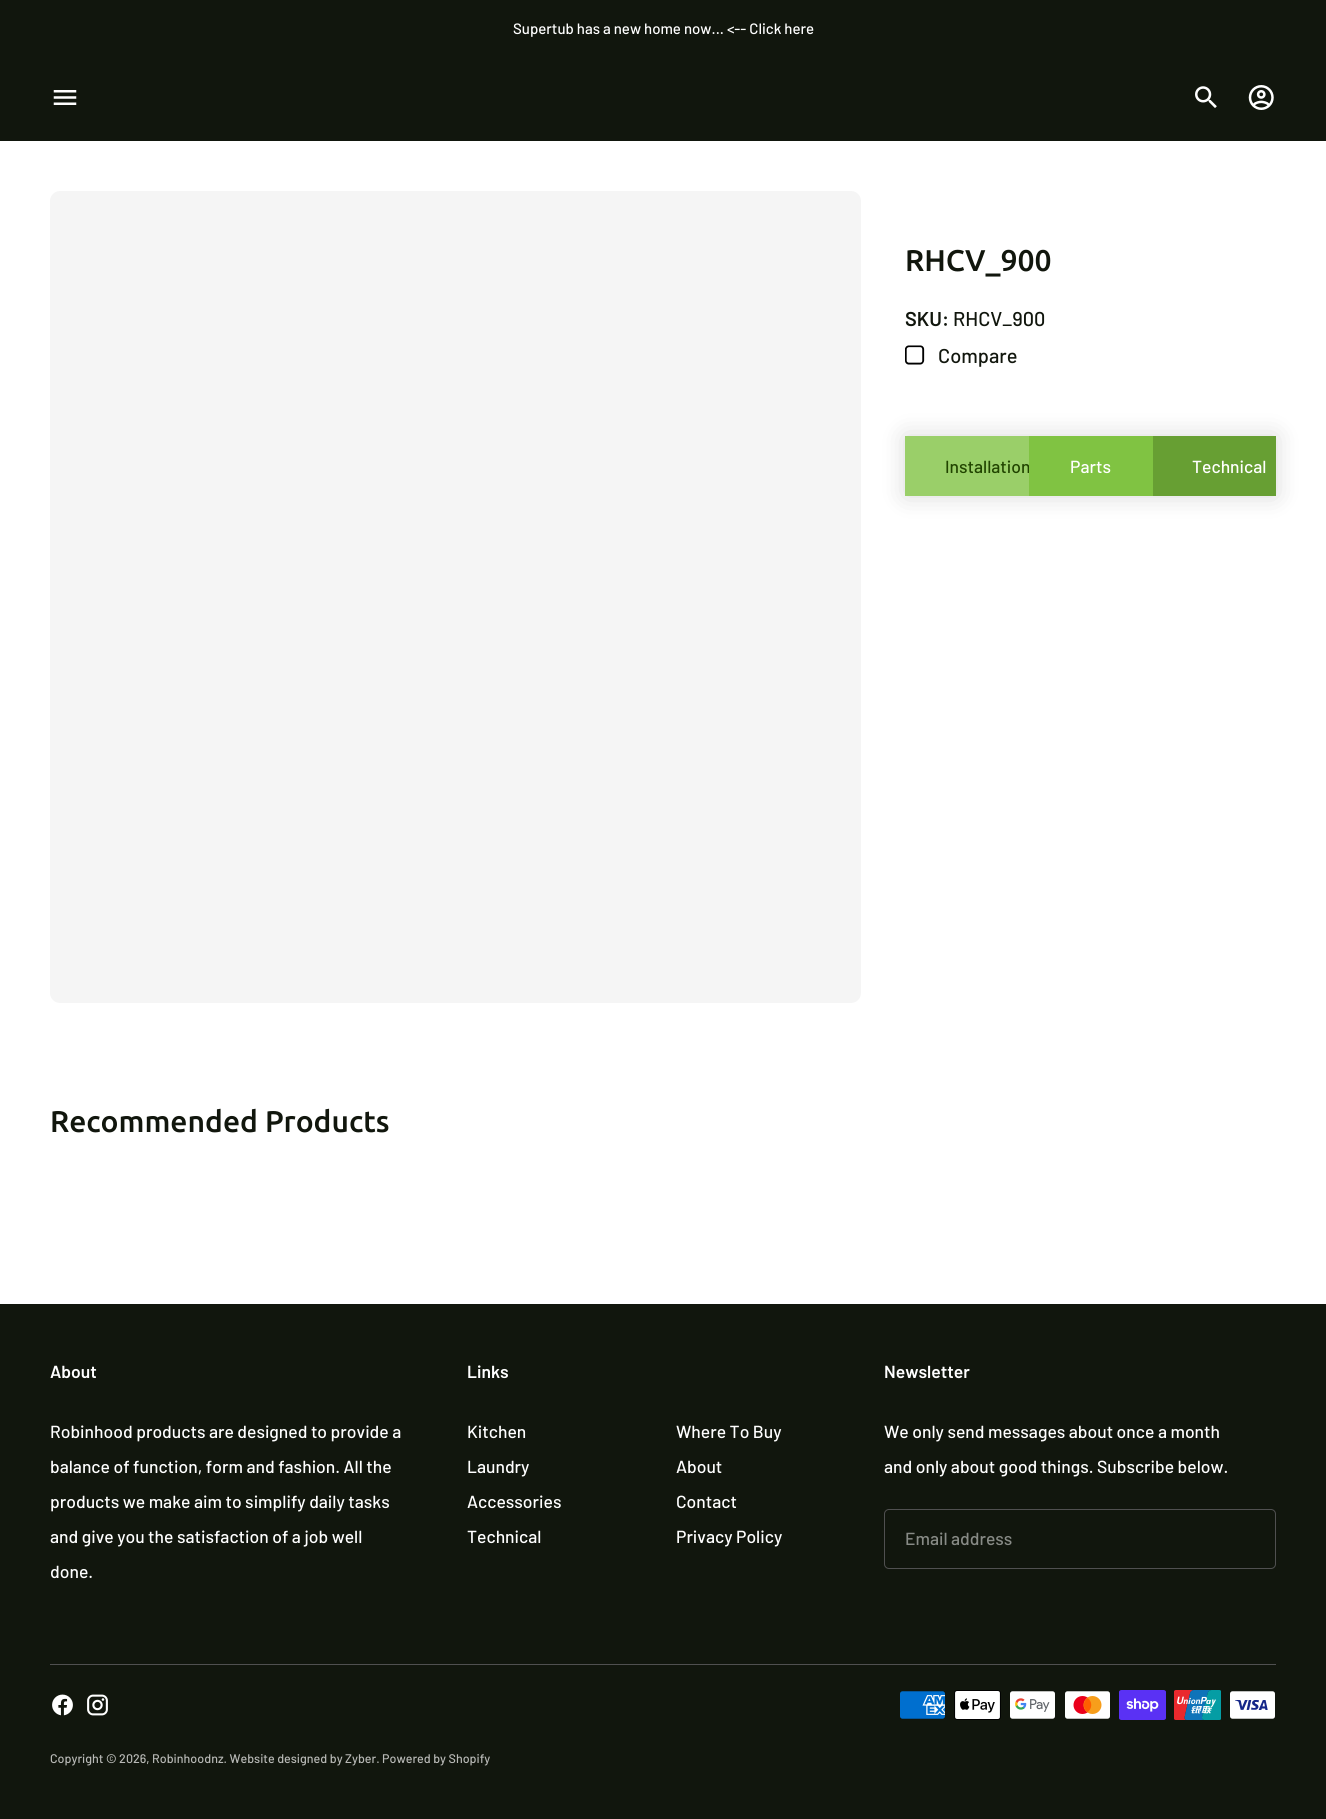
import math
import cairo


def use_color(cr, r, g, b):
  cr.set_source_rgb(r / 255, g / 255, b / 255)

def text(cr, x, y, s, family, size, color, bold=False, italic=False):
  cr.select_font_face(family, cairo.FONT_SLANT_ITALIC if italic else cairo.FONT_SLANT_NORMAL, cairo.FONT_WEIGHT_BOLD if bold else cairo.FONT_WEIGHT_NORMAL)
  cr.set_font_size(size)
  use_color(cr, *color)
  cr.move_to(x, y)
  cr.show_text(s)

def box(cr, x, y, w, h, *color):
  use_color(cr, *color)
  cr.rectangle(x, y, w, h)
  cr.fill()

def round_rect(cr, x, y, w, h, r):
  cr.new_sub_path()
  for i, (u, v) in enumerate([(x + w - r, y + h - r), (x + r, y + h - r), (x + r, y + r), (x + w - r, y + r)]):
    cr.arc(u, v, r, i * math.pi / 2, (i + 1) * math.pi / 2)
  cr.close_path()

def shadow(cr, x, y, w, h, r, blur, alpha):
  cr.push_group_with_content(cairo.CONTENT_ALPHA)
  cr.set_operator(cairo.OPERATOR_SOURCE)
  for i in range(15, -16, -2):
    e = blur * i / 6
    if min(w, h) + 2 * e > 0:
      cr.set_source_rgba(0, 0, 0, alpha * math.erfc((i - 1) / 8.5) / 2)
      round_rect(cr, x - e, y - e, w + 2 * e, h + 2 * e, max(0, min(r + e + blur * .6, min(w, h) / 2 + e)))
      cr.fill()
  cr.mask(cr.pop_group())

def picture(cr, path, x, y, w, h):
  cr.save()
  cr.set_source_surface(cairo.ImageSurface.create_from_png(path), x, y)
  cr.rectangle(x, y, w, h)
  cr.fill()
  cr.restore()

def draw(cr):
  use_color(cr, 255, 255, 255)
  cr.paint()
  box(cr, 0, 0, 1326, 141, 17, 22, 13)
  picture(cr, "img_01.png", 53, 90, 24, 15)
  picture(cr, "img_02.png", 1195, 86, 22, 22)
  picture(cr, "img_03.png", 1248, 85, 26, 25)
  use_color(cr, 245, 245, 245)
  round_rect(cr, 50, 191, 811, 812, 10)
  cr.fill()
  picture(cr, "img_04.png", 905, 345, 20, 20)
  use_color(cr, 0, 0, 0)
  shadow(cr, 905, 436, 371, 60, 0, 12.5, 0.15)
  box(cr, 905, 436, 124, 60, 154, 207, 105)
  box(cr, 1153, 436, 123, 60, 103, 159, 51)
  box(cr, 0, 1304, 1326, 515, 17, 22, 13)
  round_rect(cr, 884.5, 1509.5, 391, 59, 4.5)
  use_color(cr, 80, 80, 80)
  cr.set_line_width(1)
  cr.stroke()
  box(cr, 50, 1664, 1226, 1, 80, 80, 80)
  picture(cr, "img_05.png", 52, 1694, 21, 22)
  picture(cr, "img_06.png", 87, 1694, 21, 22)
  picture(cr, "img_07.png", 900, 1691, 45, 28)
  picture(cr, "img_08.png", 954, 1690, 47, 30)
  picture(cr, "img_09.png", 1010, 1691, 45, 28)
  picture(cr, "img_10.png", 1065, 1691, 45, 28)
  picture(cr, "img_11.png", 1119, 1690, 47, 30)
  picture(cr, "img_12.png", 1174, 1690, 47, 30)
  picture(cr, "img_13.png", 1230, 1691, 45, 28)
  text(cr, 513, 34, "Supertub has a new home now... <-- Click here", "Barlow Medium", 15, (255, 255, 255))
  text(cr, 905, 271, "RHCV_900", "Ubuntu Medium", 30, (17, 22, 13))
  text(cr, 905, 326, "SKU:", "Barlow SemiBold", 20, (17, 22, 13))
  text(cr, 953, 326, "RHCV_900", "Barlow Medium", 20, (17, 22, 13))
  text(cr, 938, 363, "Compare", "Barlow Medium", 20, (17, 22, 13))
  text(cr, 945, 473, "Installation", "Barlow Medium", 17.5, (33, 68, 0))
  box(cr, 1029, 436, 124, 60, 128, 195, 66)
  text(cr, 1070, 473, "Parts", "Barlow Medium", 17.5, (255, 255, 255))
  text(cr, 1192, 473, "Technical", "Barlow Medium", 17.5, (255, 255, 255))
  text(cr, 50, 1132, "Recommended Products", "Ubuntu Medium", 30, (17, 22, 13))
  text(cr, 50, 1378, "About", "Barlow SemiBold", 17.5, (255, 255, 255))
  text(cr, 50, 1438, "Robinhood products are designed to provide a", "Barlow Medium", 17.5, (255, 255, 255))
  text(cr, 50, 1473, "balance of function, form and fashion. All the", "Barlow Medium", 17.5, (255, 255, 255))
  text(cr, 50, 1508, "products we make aim to simplify daily tasks", "Barlow Medium", 17.5, (255, 255, 255))
  text(cr, 50, 1543, "and give you the satisfaction of a job well", "Barlow Medium", 17.5, (255, 255, 255))
  text(cr, 50, 1578, "done.", "Barlow Medium", 17.5, (255, 255, 255))
  text(cr, 467, 1378, "Links", "Barlow SemiBold", 17.5, (255, 255, 255))
  text(cr, 467, 1438, "Kitchen", "Barlow Medium", 17.5, (255, 255, 255))
  text(cr, 676, 1438, "Where To Buy", "Barlow Medium", 17.5, (255, 255, 255))
  text(cr, 467, 1473, "Laundry", "Barlow Medium", 17.5, (255, 255, 255))
  text(cr, 676, 1473, "About", "Barlow Medium", 17.5, (255, 255, 255))
  text(cr, 467, 1508, "Accessories", "Barlow Medium", 17.5, (255, 255, 255))
  text(cr, 676, 1508, "Contact", "Barlow Medium", 17.5, (255, 255, 255))
  text(cr, 467, 1543, "Technical", "Barlow Medium", 17.5, (255, 255, 255))
  text(cr, 676, 1543, "Privacy Policy", "Barlow Medium", 17.5, (255, 255, 255))
  text(cr, 884, 1378, "Newsletter", "Barlow SemiBold", 17.5, (255, 255, 255))
  text(cr, 884, 1438, "We only send messages about once a month", "Barlow Medium", 17.5, (255, 255, 255))
  text(cr, 884, 1473, "and only about good things. Subscribe below.", "Barlow Medium", 17.5, (255, 255, 255))
  text(cr, 905, 1545, "Email address", "Barlow Medium", 17.5, (136, 139, 134))
  text(cr, 50, 1763, "Copyright © 2026, Robinhoodnz. Website designed by Zyber. Powered by Shopify", "Barlow Medium", 12.5, (184, 185, 182))


surface = cairo.ImageSurface(cairo.FORMAT_RGB24, 1326, 1819)
cr = cairo.Context(surface)
options = cairo.FontOptions()
options.set_hint_metrics(cairo.HINT_METRICS_OFF)
options.set_hint_style(cairo.HINT_STYLE_NONE)
cr.set_font_options(options)
cr.set_miter_limit(4)
draw(cr)
surface.write_to_png("out.png")
